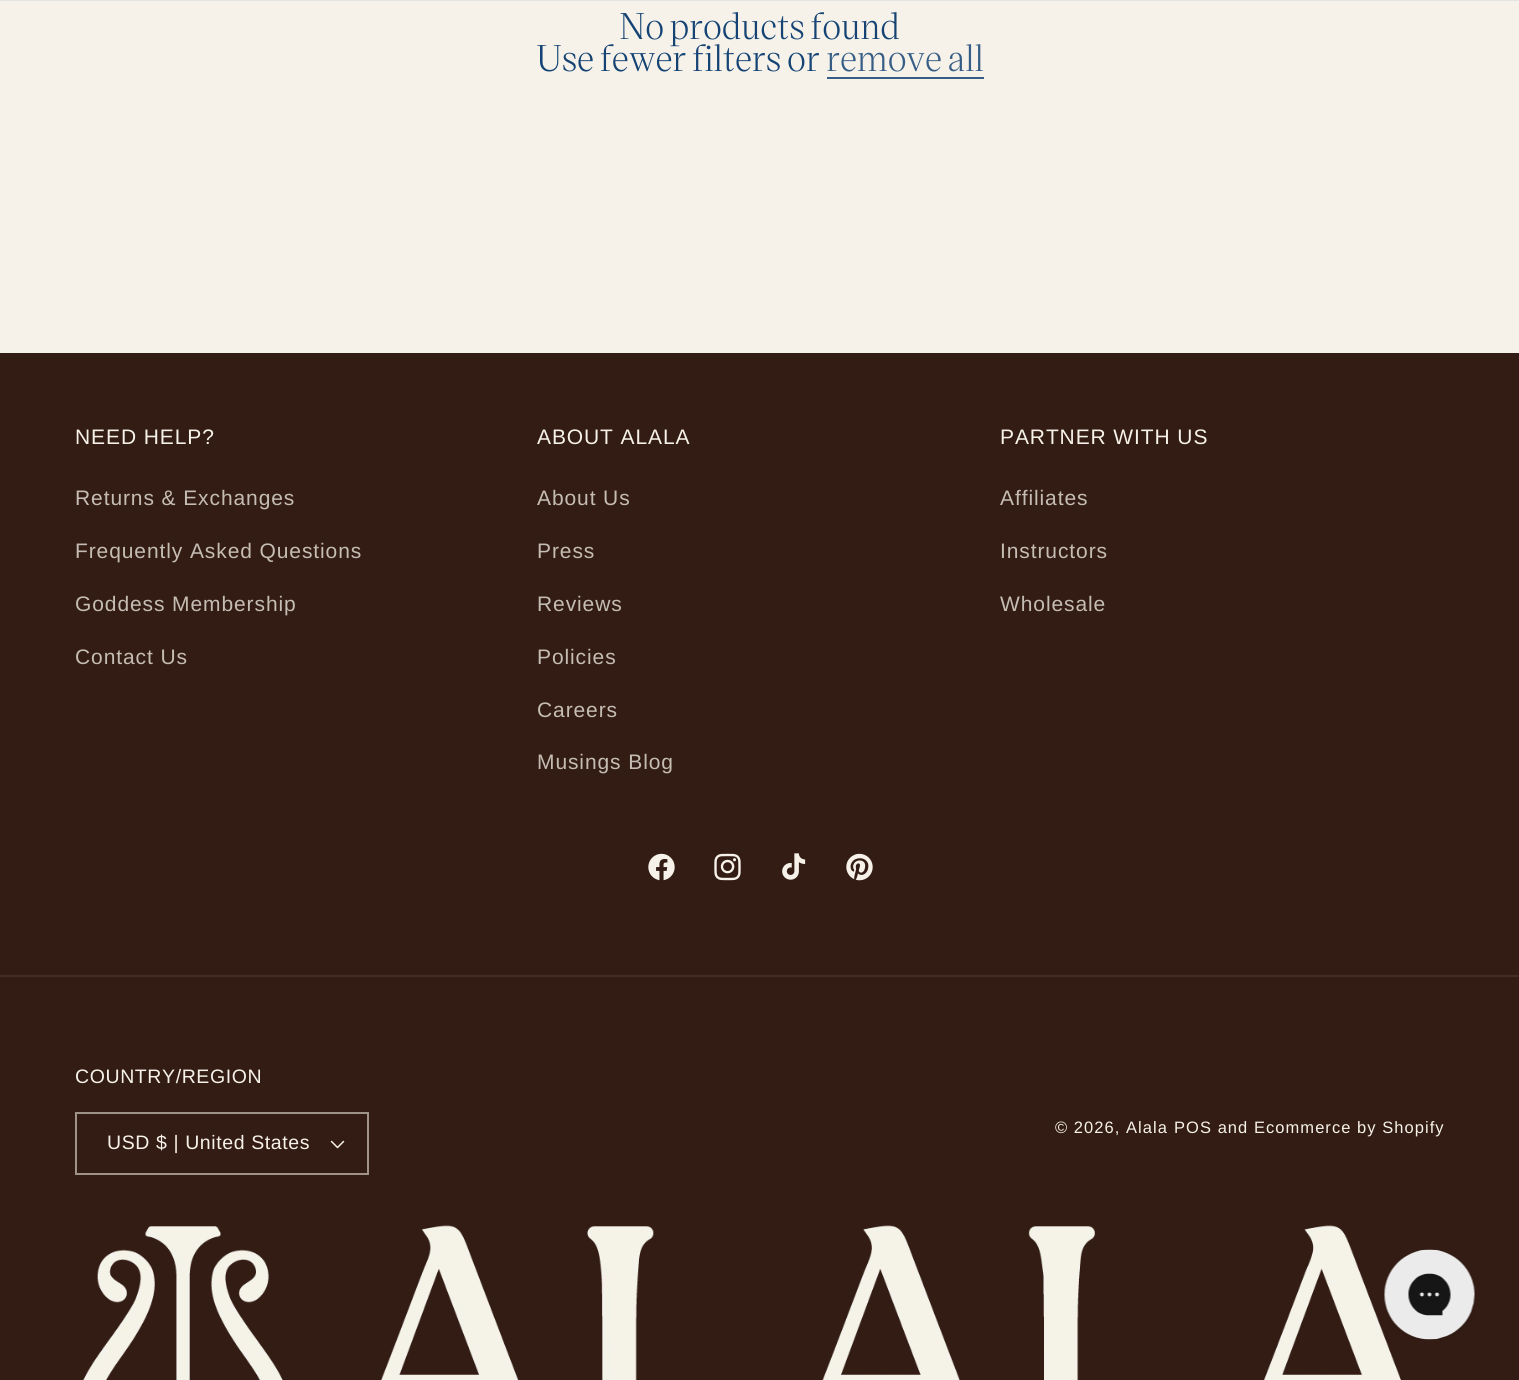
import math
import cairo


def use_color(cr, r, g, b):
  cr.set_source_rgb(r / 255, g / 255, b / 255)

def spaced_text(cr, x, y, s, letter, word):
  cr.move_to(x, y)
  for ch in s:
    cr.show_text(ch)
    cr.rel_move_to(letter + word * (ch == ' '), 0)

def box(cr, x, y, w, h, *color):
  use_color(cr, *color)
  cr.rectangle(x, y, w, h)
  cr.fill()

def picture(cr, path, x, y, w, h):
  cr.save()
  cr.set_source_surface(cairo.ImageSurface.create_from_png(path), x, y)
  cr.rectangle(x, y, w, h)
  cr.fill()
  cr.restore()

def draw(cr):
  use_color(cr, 246, 242, 233)
  cr.paint()
  box(cr, 0, 0, 1519, 1, 228, 228, 224)
  box(cr, 827, 77, 157, 2, 54, 93, 134)
  box(cr, 0, 353, 1519, 1027, 51, 28, 19)
  picture(cr, "img_01.png", 648, 853, 27, 28)
  picture(cr, "img_02.png", 714, 853, 27, 28)
  picture(cr, "img_03.png", 782, 853, 24, 27)
  picture(cr, "img_04.png", 846, 853, 27, 28)
  box(cr, 0, 975, 1519, 2, 67, 45, 36)
  picture(cr, "img_05.png", 330, 1140, 15, 9)
  cr.rectangle(76, 1113, 292, 61)
  use_color(cr, 158, 146, 137)
  cr.stroke()
  picture(cr, "img_06.png", 83, 1225, 1318, 155)
  picture(cr, "img_07.png", 1384, 1249, 91, 91)
  cr.select_font_face("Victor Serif")
  cr.set_font_size(36)
  use_color(cr, 20, 67, 116)
  spaced_text(cr, 619, 39, "No products found", -0.2, 0)
  spaced_text(cr, 536, 71, "Use fewer filters or", -0.2, 0)
  use_color(cr, 54, 93, 134)
  spaced_text(cr, 826, 71, "remove all", -0.2, 0)
  cr.select_font_face("Liberation Sans")
  cr.set_font_size(21)
  use_color(cr, 246, 242, 233)
  spaced_text(cr, 75, 444, "NEED HELP?", 0.9, 0)
  use_color(cr, 197, 189, 180)
  spaced_text(cr, 75, 505, "Returns & Exchanges", 0.9, 0)
  spaced_text(cr, 75, 558, "Frequently Asked Questions", 0.9, 0)
  spaced_text(cr, 75, 611, "Goddess Membership", 0.9, 0)
  spaced_text(cr, 75, 664, "Contact Us", 0.9, 0)
  use_color(cr, 246, 242, 233)
  spaced_text(cr, 537, 444, "ABOUT ALALA", 0.9, 0)
  use_color(cr, 197, 189, 180)
  spaced_text(cr, 537, 505, "About Us", 0.9, 0)
  spaced_text(cr, 537, 558, "Press", 0.9, 0)
  spaced_text(cr, 537, 611, "Reviews", 0.9, 0)
  spaced_text(cr, 537, 664, "Policies", 0.9, 0)
  spaced_text(cr, 537, 717, "Careers", 0.9, 0)
  spaced_text(cr, 537, 769, "Musings Blog", 0.9, 0)
  use_color(cr, 246, 242, 233)
  spaced_text(cr, 1000, 444, "PARTNER WITH US", 0.9, 0)
  use_color(cr, 197, 189, 180)
  spaced_text(cr, 1000, 505, "Affiliates", 0.9, 0)
  spaced_text(cr, 1000, 558, "Instructors", 0.9, 0)
  spaced_text(cr, 1000, 611, "Wholesale", 0.9, 0)
  cr.set_font_size(19.5)
  use_color(cr, 246, 242, 233)
  spaced_text(cr, 75, 1083, "COUNTRY/REGION", 0.6, 0)
  spaced_text(cr, 107, 1149, "USD $ | United States", 0.6, 0)
  cr.set_font_size(16.5)
  spaced_text(cr, 1055, 1133, "© 2026, Alala", 1.05, 0)
  spaced_text(cr, 1174, 1133, "POS and Ecommerce by Shopify", 1.05, 0)


surface = cairo.ImageSurface(cairo.FORMAT_RGB24, 1519, 1380)
cr = cairo.Context(surface)
options = cairo.FontOptions()
options.set_hint_metrics(cairo.HINT_METRICS_OFF)
options.set_hint_style(cairo.HINT_STYLE_NONE)
cr.set_font_options(options)
cr.set_miter_limit(4)
draw(cr)
surface.write_to_png("out.png")
